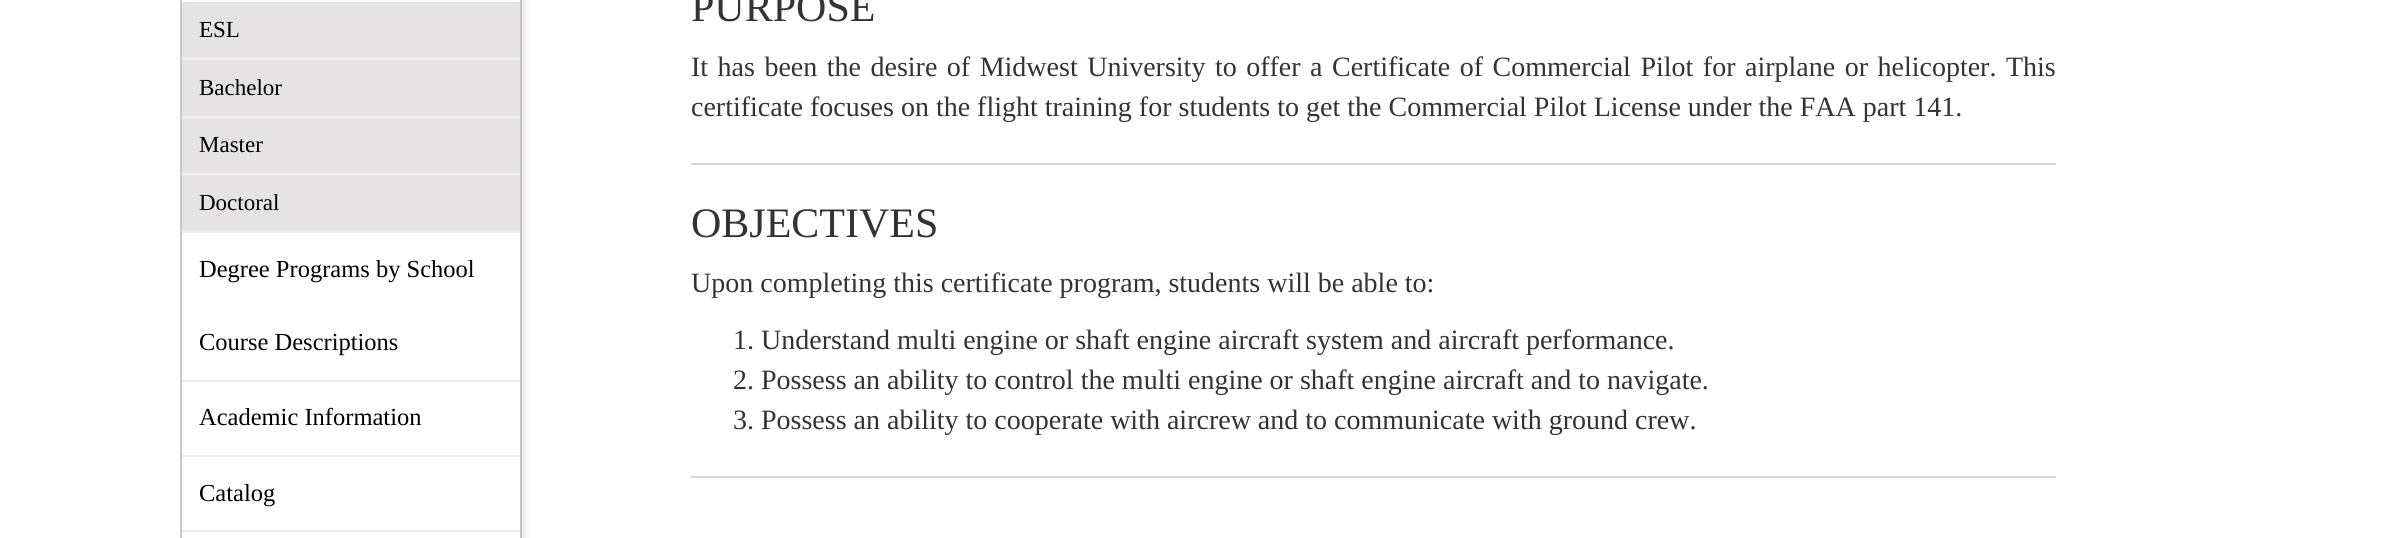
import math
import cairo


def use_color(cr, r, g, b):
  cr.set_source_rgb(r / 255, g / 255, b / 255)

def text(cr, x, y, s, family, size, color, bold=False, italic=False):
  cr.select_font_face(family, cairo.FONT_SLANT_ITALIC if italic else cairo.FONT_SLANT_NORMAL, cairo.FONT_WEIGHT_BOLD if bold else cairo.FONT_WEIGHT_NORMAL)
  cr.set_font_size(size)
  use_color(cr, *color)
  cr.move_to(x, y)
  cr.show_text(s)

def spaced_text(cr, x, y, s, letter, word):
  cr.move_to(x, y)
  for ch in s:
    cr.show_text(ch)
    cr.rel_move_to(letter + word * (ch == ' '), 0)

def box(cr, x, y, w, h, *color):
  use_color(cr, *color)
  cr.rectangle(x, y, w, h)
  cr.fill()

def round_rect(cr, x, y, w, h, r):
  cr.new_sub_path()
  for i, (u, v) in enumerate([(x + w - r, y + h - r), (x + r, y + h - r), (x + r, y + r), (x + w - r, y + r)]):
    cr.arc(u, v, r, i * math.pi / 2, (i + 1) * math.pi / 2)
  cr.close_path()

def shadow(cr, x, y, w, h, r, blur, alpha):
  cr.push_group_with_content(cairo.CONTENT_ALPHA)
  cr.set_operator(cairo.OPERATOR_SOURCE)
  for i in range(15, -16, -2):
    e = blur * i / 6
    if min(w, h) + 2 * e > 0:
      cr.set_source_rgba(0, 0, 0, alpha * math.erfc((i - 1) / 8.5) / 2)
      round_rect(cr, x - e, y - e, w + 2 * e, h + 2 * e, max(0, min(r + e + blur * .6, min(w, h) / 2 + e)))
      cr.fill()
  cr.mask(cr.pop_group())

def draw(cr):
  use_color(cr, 255, 255, 255)
  cr.paint()
  cr.save()
  cr.rectangle(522, 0, 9, 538)
  cr.clip()
  use_color(cr, 203, 203, 203)
  shadow(cr, 198, -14, 324, 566, 0, 4.5, 1)
  cr.restore()
  box(cr, 520, 0, 2, 538, 200, 200, 200)
  box(cr, 180, 0, 2, 538, 200, 200, 200)
  box(cr, 182, 2, 338, 229, 229, 227, 227)
  box(cr, 182, 58, 338, 2, 238, 238, 238)
  box(cr, 182, 116, 338, 2, 238, 238, 238)
  box(cr, 182, 173, 338, 2, 238, 238, 238)
  box(cr, 182, 231, 338, 2, 238, 238, 238)
  box(cr, 182, 380, 338, 2, 238, 238, 238)
  box(cr, 182, 455, 338, 2, 238, 238, 238)
  box(cr, 182, 530, 338, 2, 238, 238, 238)
  box(cr, 691, 163, 1365, 2, 213, 213, 213)
  box(cr, 691, 476, 1365, 2, 213, 213, 213)
  text(cr, 199, 37, "ESL", "Liberation Serif", 23, (0, 0, 0))
  text(cr, 199, 95, "Bachelor", "Liberation Serif", 23, (0, 0, 0))
  text(cr, 199, 152, "Master", "Liberation Serif", 23, (0, 0, 0))
  text(cr, 199, 210, "Doctoral", "Liberation Serif", 23, (0, 0, 0))
  text(cr, 199, 277, "Degree Programs by School", "Liberation Serif", 24.5, (0, 0, 0))
  text(cr, 199, 350, "Course Descriptions", "Liberation Serif", 24.5, (0, 0, 0))
  text(cr, 199, 425, "Academic Information", "Liberation Serif", 24.5, (0, 0, 0))
  text(cr, 199, 501, "Catalog", "Liberation Serif", 24.5, (0, 0, 0))
  text(cr, 691, 21, "PURPOSE", "Liberation Serif", 42, (51, 51, 51))
  cr.set_font_size(28)
  spaced_text(cr, 691, 76, "It has been the desire of Midwest University to offer a Certificate of Commercial Pilot for airplane or helicopter. This", 0, 2.5)
  text(cr, 691, 116, "certificate focuses on the flight training for students to get the Commercial Pilot License under the FAA part 141.", "Liberation Serif", 28, (51, 51, 51))
  text(cr, 691, 237, "OBJECTIVES", "Liberation Serif", 42, (51, 51, 51))
  text(cr, 691, 292, "Upon completing this certificate program, students will be able to:", "Liberation Serif", 28, (51, 51, 51))
  text(cr, 733, 349, "1. Understand multi engine or shaft engine aircraft system and aircraft performance.", "Liberation Serif", 28, (51, 51, 51))
  text(cr, 733, 389, "2. Possess an ability to control the multi engine or shaft engine aircraft and to navigate.", "Liberation Serif", 28, (51, 51, 51))
  text(cr, 733, 429, "3. Possess an ability to cooperate with aircrew and to communicate with ground crew.", "Liberation Serif", 28, (51, 51, 51))


surface = cairo.ImageSurface(cairo.FORMAT_RGB24, 2405, 538)
cr = cairo.Context(surface)
options = cairo.FontOptions()
options.set_hint_metrics(cairo.HINT_METRICS_OFF)
options.set_hint_style(cairo.HINT_STYLE_NONE)
cr.set_font_options(options)
cr.set_miter_limit(4)
draw(cr)
surface.write_to_png("out.png")
